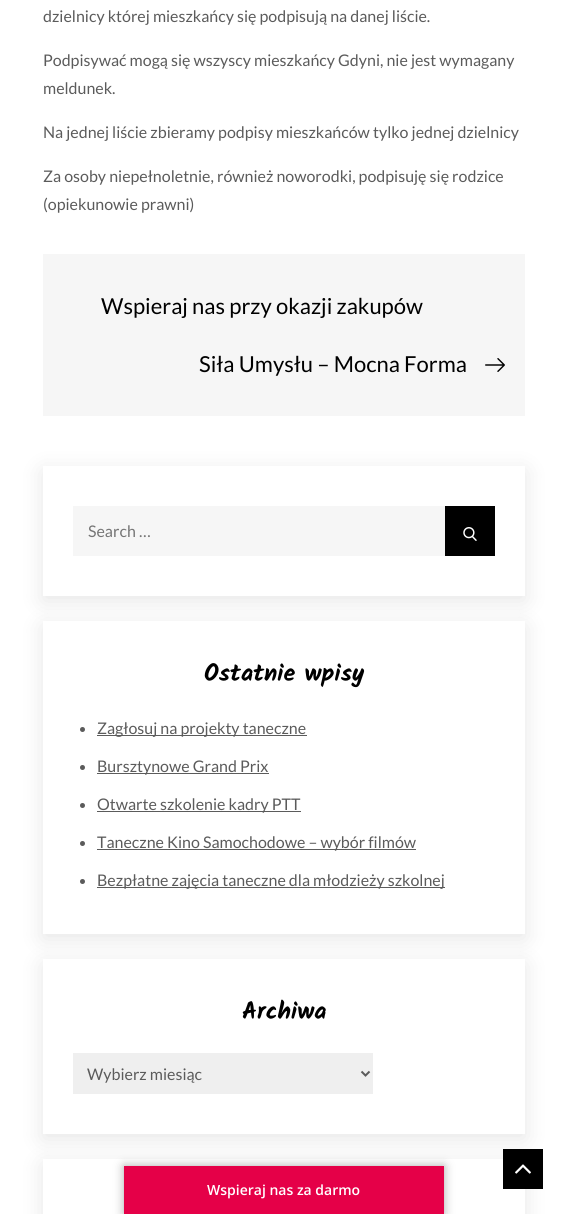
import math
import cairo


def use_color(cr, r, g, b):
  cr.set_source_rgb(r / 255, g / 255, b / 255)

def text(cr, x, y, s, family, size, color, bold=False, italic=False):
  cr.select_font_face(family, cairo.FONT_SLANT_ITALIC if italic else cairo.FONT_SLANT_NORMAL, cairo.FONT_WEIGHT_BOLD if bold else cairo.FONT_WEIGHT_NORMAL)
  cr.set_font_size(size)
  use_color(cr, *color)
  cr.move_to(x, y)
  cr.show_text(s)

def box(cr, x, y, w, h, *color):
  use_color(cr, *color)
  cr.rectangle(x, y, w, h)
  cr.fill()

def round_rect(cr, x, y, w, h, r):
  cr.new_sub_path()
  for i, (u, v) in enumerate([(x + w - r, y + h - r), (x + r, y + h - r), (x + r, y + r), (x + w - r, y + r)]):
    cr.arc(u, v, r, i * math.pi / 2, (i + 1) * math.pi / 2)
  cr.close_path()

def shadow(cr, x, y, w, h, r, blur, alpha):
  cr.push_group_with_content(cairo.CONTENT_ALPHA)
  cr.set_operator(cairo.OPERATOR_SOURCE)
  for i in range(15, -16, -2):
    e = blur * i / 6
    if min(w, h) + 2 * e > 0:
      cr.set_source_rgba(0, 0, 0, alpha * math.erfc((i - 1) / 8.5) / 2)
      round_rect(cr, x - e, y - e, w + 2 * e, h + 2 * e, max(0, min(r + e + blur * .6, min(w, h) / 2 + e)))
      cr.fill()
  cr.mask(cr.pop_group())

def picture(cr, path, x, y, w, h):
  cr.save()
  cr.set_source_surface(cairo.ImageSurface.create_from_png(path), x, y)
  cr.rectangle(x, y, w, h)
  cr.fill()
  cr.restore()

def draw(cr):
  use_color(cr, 255, 255, 255)
  cr.paint()
  box(cr, 43, 254, 482, 162, 246, 246, 246)
  picture(cr, "img_01.png", 485, 358, 20, 14)
  cr.save()
  cr.set_fill_rule(cairo.FILL_RULE_EVEN_ODD)
  cr.new_path()
  cr.move_to(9, 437)
  cr.line_to(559, 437)
  cr.line_to(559, 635)
  cr.line_to(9, 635)
  cr.close_path()
  cr.move_to(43, 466)
  cr.line_to(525, 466)
  cr.line_to(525, 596)
  cr.line_to(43, 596)
  cr.close_path()
  cr.clip()
  use_color(cr, 0, 0, 0)
  shadow(cr, 43, 471, 482, 130, 0, 11, 0.1)
  cr.restore()
  box(cr, 73, 506, 372, 50, 246, 246, 246)
  box(cr, 445, 506, 50, 50, 0, 0, 0)
  picture(cr, "img_02.png", 463, 527, 14, 14)
  cr.save()
  cr.set_fill_rule(cairo.FILL_RULE_EVEN_ODD)
  cr.new_path()
  cr.move_to(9, 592)
  cr.line_to(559, 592)
  cr.line_to(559, 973)
  cr.line_to(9, 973)
  cr.close_path()
  cr.move_to(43, 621)
  cr.line_to(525, 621)
  cr.line_to(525, 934)
  cr.line_to(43, 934)
  cr.close_path()
  cr.clip()
  use_color(cr, 0, 0, 0)
  shadow(cr, 43, 626, 482, 313, 0, 11, 0.1)
  cr.restore()
  use_color(cr, 91, 91, 91)
  cr.arc(82.5, 729.5, 2.5, 0, 2 * math.pi)
  cr.fill()
  box(cr, 97, 735, 210, 1, 91, 91, 91)
  cr.arc(82.5, 767.5, 2.5, 0, 2 * math.pi)
  cr.fill()
  box(cr, 97, 773, 172, 1, 91, 91, 91)
  cr.arc(82.5, 805.5, 2.5, 0, 2 * math.pi)
  cr.fill()
  box(cr, 97, 811, 204, 1, 91, 91, 91)
  cr.arc(82.5, 843.5, 2.5, 0, 2 * math.pi)
  cr.fill()
  box(cr, 97, 849, 319, 1, 91, 91, 91)
  cr.arc(82.5, 881.5, 2.5, 0, 2 * math.pi)
  cr.fill()
  box(cr, 97, 887, 348, 1, 91, 91, 91)
  cr.save()
  cr.set_fill_rule(cairo.FILL_RULE_EVEN_ODD)
  cr.new_path()
  cr.move_to(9, 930)
  cr.line_to(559, 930)
  cr.line_to(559, 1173)
  cr.line_to(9, 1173)
  cr.close_path()
  cr.move_to(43, 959)
  cr.line_to(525, 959)
  cr.line_to(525, 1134)
  cr.line_to(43, 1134)
  cr.close_path()
  cr.clip()
  use_color(cr, 0, 0, 0)
  shadow(cr, 43, 964, 482, 175, 0, 11, 0.1)
  cr.restore()
  box(cr, 73, 1053, 300, 41, 239, 239, 239)
  cr.new_path()
  cr.move_to(361.5, 1071.5)
  cr.line_to(365.5, 1075.5)
  cr.line_to(369.5, 1071.5)
  use_color(cr, 91, 91, 91)
  cr.stroke()
  cr.save()
  cr.set_fill_rule(cairo.FILL_RULE_EVEN_ODD)
  cr.new_path()
  cr.move_to(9, 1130)
  cr.line_to(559, 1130)
  cr.line_to(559, 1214)
  cr.line_to(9, 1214)
  cr.close_path()
  cr.move_to(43, 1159)
  cr.line_to(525, 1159)
  cr.line_to(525, 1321)
  cr.line_to(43, 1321)
  cr.close_path()
  cr.clip()
  use_color(cr, 0, 0, 0)
  shadow(cr, 43, 1164, 482, 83, 0, 11, 0.1)
  cr.restore()
  box(cr, 503, 1149, 40, 40, 0, 0, 0)
  picture(cr, "img_03.png", 515, 1164, 16, 10)
  use_color(cr, 170, 170, 170)
  shadow(cr, 124, 1166, 320, 48, 0, 5, 1)
  box(cr, 124, 1166, 320, 48, 229, 0, 72)
  text(cr, 43, 22, "dzielnicy której mieszkańcy się podpisują na danej liście.", "Lato", 16, (91, 91, 91))
  text(cr, 43, 66, "Podpisywać mogą się wszyscy mieszkańcy Gdyni, nie jest wymagany", "Lato", 16, (91, 91, 91))
  text(cr, 43, 94, "meldunek.", "Lato", 16, (91, 91, 91))
  text(cr, 43, 138, "Na jednej liście zbieramy podpisy mieszkańców tylko jednej dzielnicy", "Lato", 16, (91, 91, 91))
  text(cr, 43, 182, "Za osoby niepełnoletnie, również noworodki, podpisuję się rodzice", "Lato", 16, (91, 91, 91))
  text(cr, 43, 210, "(opiekunowie prawni)", "Lato", 16, (91, 91, 91))
  text(cr, 101, 314, "Wspieraj nas przy okazji zakupów", "Lato", 22, (0, 0, 0))
  text(cr, 199, 372, "Siła Umysłu – Mocna Forma", "Lato", 22, (0, 0, 0))
  text(cr, 88, 537, "Search …", "Lato", 16, (117, 117, 117))
  text(cr, 204, 681, "Ostatnie wpisy", "Kalam", 24, (0, 0, 0), bold=True)
  text(cr, 97, 734, "Zagłosuj na projekty taneczne", "Lato", 16, (91, 91, 91))
  text(cr, 97, 772, "Bursztynowe Grand Prix", "Lato", 16, (91, 91, 91))
  text(cr, 97, 810, "Otwarte szkolenie kadry PTT", "Lato", 16, (91, 91, 91))
  text(cr, 97, 848, "Taneczne Kino Samochodowe – wybór filmów", "Lato", 16, (91, 91, 91))
  text(cr, 97, 886, "Bezpłatne zajęcia taneczne dla młodzieży szkolnej", "Lato", 16, (91, 91, 91))
  text(cr, 242, 1019, "Archiwa", "Kalam", 24, (0, 0, 0), bold=True)
  text(cr, 87, 1080, "Wybierz miesiąc", "Lato", 16, (91, 91, 91))
  text(cr, 207, 1195, "Wspieraj nas za darmo", "Open Sans SemiBold", 14, (255, 255, 255))


surface = cairo.ImageSurface(cairo.FORMAT_RGB24, 568, 1214)
cr = cairo.Context(surface)
options = cairo.FontOptions()
options.set_hint_metrics(cairo.HINT_METRICS_OFF)
options.set_hint_style(cairo.HINT_STYLE_NONE)
cr.set_font_options(options)
cr.set_miter_limit(4)
draw(cr)
surface.write_to_png("out.png")
